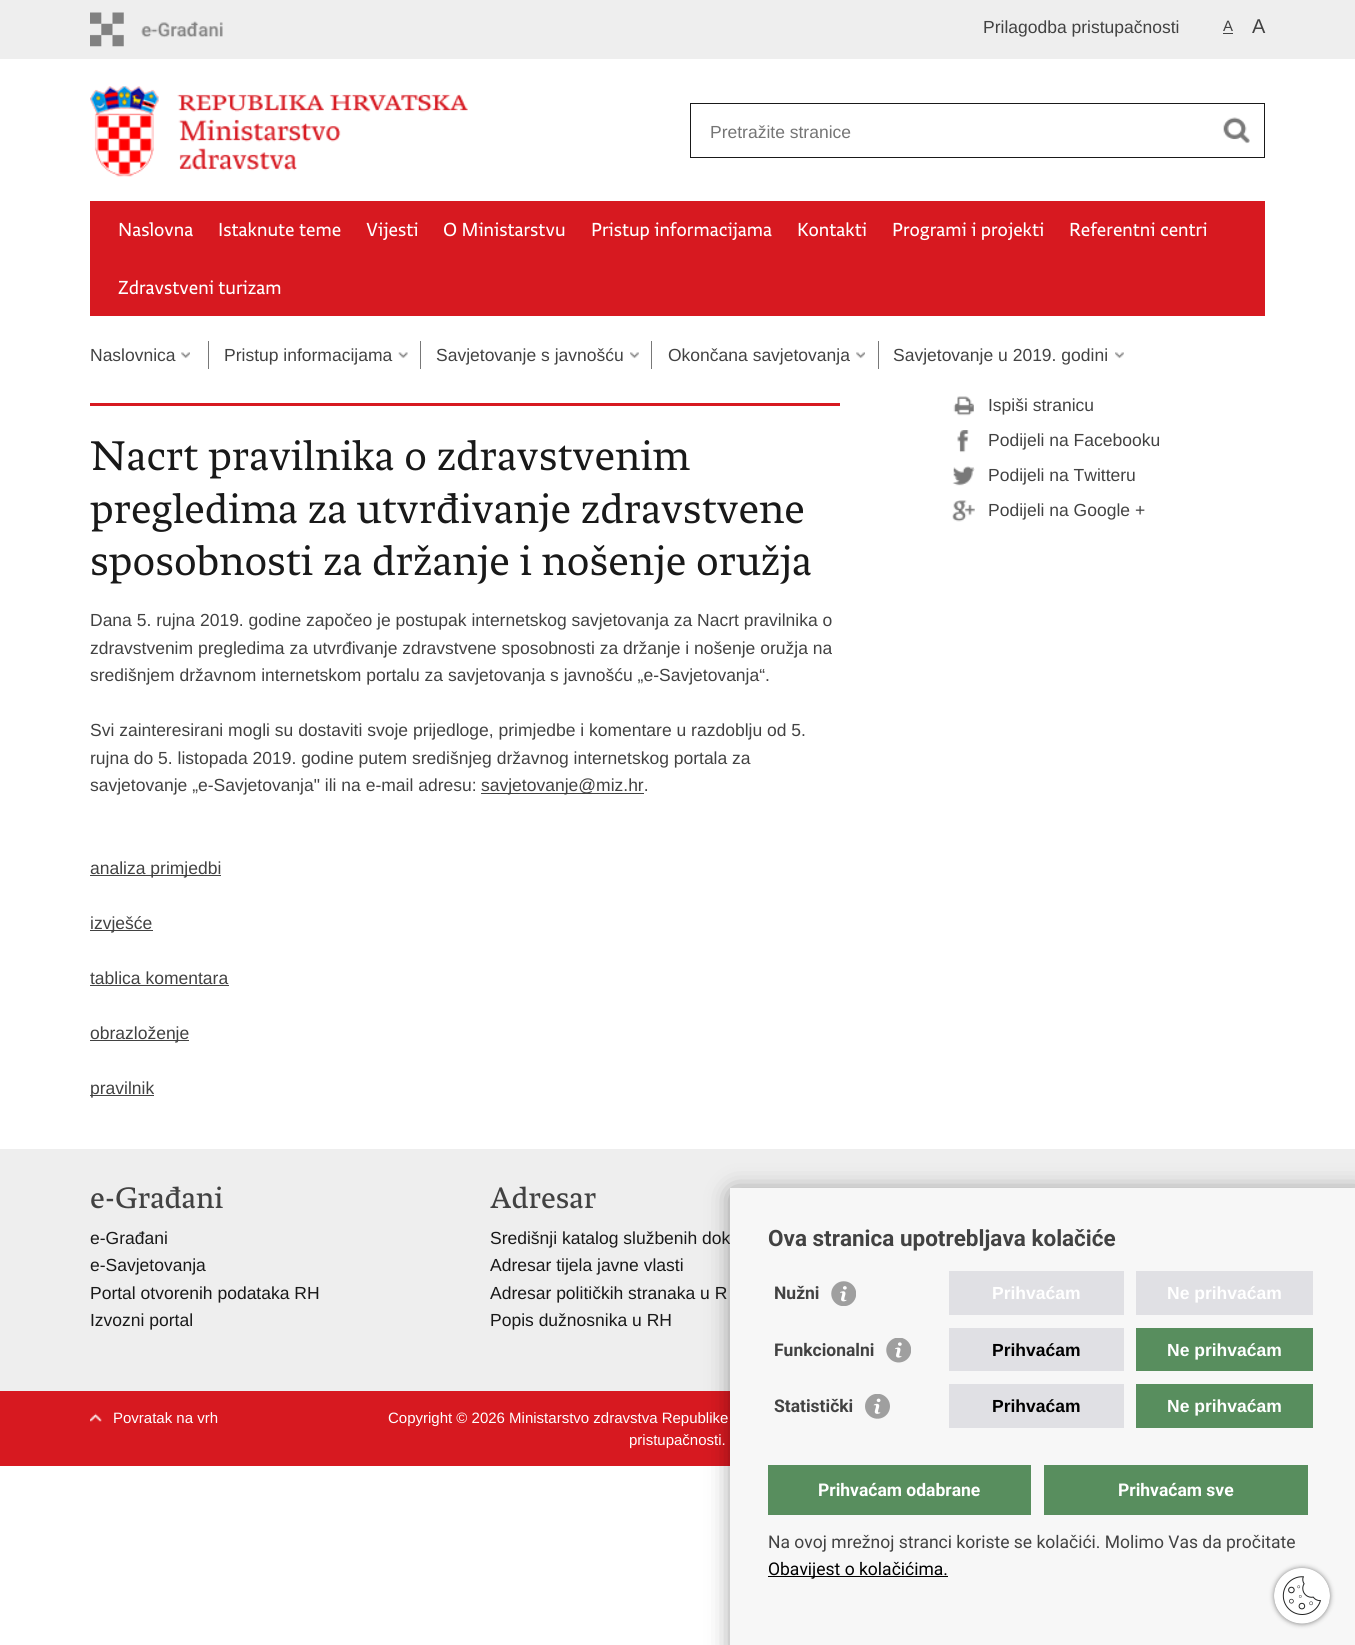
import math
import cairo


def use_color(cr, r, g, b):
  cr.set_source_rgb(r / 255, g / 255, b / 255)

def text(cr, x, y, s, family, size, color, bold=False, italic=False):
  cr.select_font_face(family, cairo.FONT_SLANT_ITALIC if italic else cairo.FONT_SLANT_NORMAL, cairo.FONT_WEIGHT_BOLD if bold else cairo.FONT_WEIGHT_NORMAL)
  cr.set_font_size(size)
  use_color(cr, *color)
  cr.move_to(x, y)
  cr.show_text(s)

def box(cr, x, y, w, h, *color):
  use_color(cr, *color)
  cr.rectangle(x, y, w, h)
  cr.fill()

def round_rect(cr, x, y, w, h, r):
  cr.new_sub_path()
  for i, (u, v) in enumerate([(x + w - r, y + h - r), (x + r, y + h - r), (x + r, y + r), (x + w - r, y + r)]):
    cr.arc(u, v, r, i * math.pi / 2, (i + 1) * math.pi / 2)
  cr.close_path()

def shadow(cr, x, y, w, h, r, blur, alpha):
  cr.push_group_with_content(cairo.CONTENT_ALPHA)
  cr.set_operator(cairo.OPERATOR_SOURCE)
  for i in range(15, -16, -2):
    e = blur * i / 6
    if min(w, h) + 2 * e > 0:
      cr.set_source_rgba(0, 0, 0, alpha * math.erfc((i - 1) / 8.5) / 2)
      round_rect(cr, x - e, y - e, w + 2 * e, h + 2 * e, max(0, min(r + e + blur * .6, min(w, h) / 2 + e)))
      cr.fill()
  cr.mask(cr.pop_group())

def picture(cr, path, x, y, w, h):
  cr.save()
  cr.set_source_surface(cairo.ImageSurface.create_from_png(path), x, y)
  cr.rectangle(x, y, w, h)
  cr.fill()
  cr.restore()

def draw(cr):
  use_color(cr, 255, 255, 255)
  cr.paint()
  box(cr, 0, 0, 1355, 59, 238, 238, 238)
  picture(cr, "img_01.png", 90, 12, 133, 35)
  box(cr, 1223, 33, 10, 1, 66, 66, 66)
  picture(cr, "img_02.png", 90, 86, 378, 91)
  cr.rectangle(690.5, 103.5, 574, 54)
  use_color(cr, 25, 25, 25)
  cr.set_line_width(1)
  cr.stroke()
  picture(cr, "img_03.png", 1223, 117, 27, 27)
  box(cr, 90, 201, 1175, 115, 215, 25, 32)
  picture(cr, "img_04.png", 181, 352, 9, 7)
  box(cr, 208, 341, 1, 28, 120, 120, 120)
  picture(cr, "img_05.png", 398, 352, 10, 7)
  box(cr, 420, 341, 1, 28, 120, 120, 120)
  picture(cr, "img_06.png", 630, 352, 9, 7)
  box(cr, 651, 341, 1, 28, 120, 120, 120)
  picture(cr, "img_04.png", 856, 352, 9, 7)
  box(cr, 878, 341, 1, 28, 120, 120, 120)
  picture(cr, "img_07.png", 1115, 352, 9, 7)
  box(cr, 90, 403, 750, 3, 215, 25, 32)
  box(cr, 481, 793, 163, 1, 66, 66, 66)
  box(cr, 90, 875, 131, 1, 66, 66, 66)
  box(cr, 90, 930, 63, 1, 66, 66, 66)
  box(cr, 90, 985, 139, 1, 66, 66, 66)
  box(cr, 90, 1040, 99, 1, 66, 66, 66)
  box(cr, 90, 1095, 64, 1, 66, 66, 66)
  picture(cr, "img_08.png", 953, 396, 21, 20)
  picture(cr, "img_09.png", 957, 430, 12, 23)
  picture(cr, "img_10.png", 952, 466, 23, 20)
  picture(cr, "img_11.png", 952, 500, 23, 22)
  box(cr, 0, 1149, 1355, 242, 238, 238, 238)
  box(cr, 0, 1391, 730, 75, 215, 25, 32)
  use_color(cr, 0, 0, 0)
  shadow(cr, 734, 1194, 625, 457, 0, 12.5, 0.5)
  picture(cr, "img_15.png", 90, 1413, 12, 9)
  text(cr, 983, 33, "Prilagodba pristupačnosti", "Liberation Sans", 17.5, (66, 66, 66))
  text(cr, 1223, 31, "A", "Liberation Sans", 15, (66, 66, 66))
  text(cr, 1252, 33, "A", "Liberation Sans", 20, (66, 66, 66))
  text(cr, 710, 138, "Pretražite stranice", "Liberation Sans", 17.5, (117, 117, 117))
  text(cr, 118, 236, "Naslovna", "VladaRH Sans", 20, (255, 255, 255))
  text(cr, 218, 236, "Istaknute teme", "VladaRH Sans", 20, (255, 255, 255))
  text(cr, 366, 236, "Vijesti", "VladaRH Sans", 20, (255, 255, 255))
  text(cr, 443, 236, "O Ministarstvu", "VladaRH Sans", 20, (255, 255, 255))
  text(cr, 591, 236, "Pristup informacijama", "VladaRH Sans", 20, (255, 255, 255))
  text(cr, 797, 236, "Kontakti", "VladaRH Sans", 20, (255, 255, 255))
  text(cr, 892, 236, "Programi i projekti", "VladaRH Sans", 20, (255, 255, 255))
  text(cr, 1069, 236, "Referentni centri", "VladaRH Sans", 20, (255, 255, 255))
  text(cr, 118, 294, "Zdravstveni turizam", "VladaRH Sans", 20, (255, 255, 255))
  text(cr, 90, 361, "Naslovnica", "Liberation Sans", 17.5, (66, 66, 66))
  text(cr, 224, 361, "Pristup informacijama", "Liberation Sans", 17.5, (66, 66, 66))
  text(cr, 436, 361, "Savjetovanje s javnošću", "Liberation Sans", 17.5, (66, 66, 66))
  text(cr, 668, 361, "Okončana savjetovanja", "Liberation Sans", 17.5, (66, 66, 66))
  text(cr, 893, 361, "Savjetovanje u 2019. godini", "Liberation Sans", 17.5, (66, 66, 66))
  text(cr, 90, 470, "Nacrt pravilnika o zdravstvenim", "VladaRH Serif", 43.75, (25, 25, 25))
  text(cr, 90, 523, "pregledima za utvrđivanje zdravstvene", "VladaRH Serif", 43.75, (25, 25, 25))
  text(cr, 90, 575, "sposobnosti za držanje i nošenje oružja", "VladaRH Serif", 43.75, (25, 25, 25))
  text(cr, 90, 626, "Dana 5. rujna 2019. godine započeo je postupak internetskog savjetovanja za Nacrt pravilnika o", "Liberation Sans", 17.5, (66, 66, 66))
  text(cr, 90, 654, "zdravstvenim pregledima za utvrđivanje zdravstvene sposobnosti za držanje i nošenje oružja na", "Liberation Sans", 17.5, (66, 66, 66))
  text(cr, 90, 681, "središnjem državnom internetskom portalu za savjetovanja s javnošću „e-Savjetovanja“.", "Liberation Sans", 17.5, (66, 66, 66))
  text(cr, 90, 736, "Svi zainteresirani mogli su dostaviti svoje prijedloge, primjedbe i komentare u razdoblju od 5.", "Liberation Sans", 17.5, (66, 66, 66))
  text(cr, 90, 764, "rujna do 5. listopada 2019. godine putem središnjeg državnog internetskog portala za", "Liberation Sans", 17.5, (66, 66, 66))
  text(cr, 90, 791, "savjetovanje „e-Savjetovanja\" ili na e-mail adresu:", "Liberation Sans", 17.5, (66, 66, 66))
  text(cr, 481, 791, "savjetovanje@miz.hr.", "Liberation Sans", 17.5, (66, 66, 66))
  text(cr, 90, 874, "analiza primjedbi", "Liberation Sans", 17.5, (66, 66, 66))
  text(cr, 90, 929, "izvješće", "Liberation Sans", 17.5, (66, 66, 66))
  text(cr, 90, 984, "tablica komentara", "Liberation Sans", 17.5, (66, 66, 66))
  text(cr, 90, 1039, "obrazloženje", "Liberation Sans", 17.5, (66, 66, 66))
  text(cr, 90, 1094, "pravilnik", "Liberation Sans", 17.5, (66, 66, 66))
  text(cr, 988, 411, "Ispiši stranicu", "Liberation Sans", 17.5, (66, 66, 66))
  text(cr, 988, 446, "Podijeli na Facebooku", "Liberation Sans", 17.5, (66, 66, 66))
  text(cr, 988, 481, "Podijeli na Twitteru", "Liberation Sans", 17.5, (66, 66, 66))
  text(cr, 988, 516, "Podijeli na Google +", "Liberation Sans", 17.5, (66, 66, 66))
  text(cr, 90, 1208, "e-Građani", "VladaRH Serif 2", 31.25, (66, 66, 66))
  text(cr, 90, 1244, "e-Građani", "Liberation Sans", 17.5, (25, 25, 25))
  text(cr, 90, 1271, "e-Savjetovanja", "Liberation Sans", 17.5, (25, 25, 25))
  text(cr, 90, 1299, "Portal otvorenih podataka RH", "Liberation Sans", 17.5, (25, 25, 25))
  text(cr, 90, 1326, "Izvozni portal", "Liberation Sans", 17.5, (25, 25, 25))
  text(cr, 490, 1208, "Adresar", "VladaRH Serif 2", 31.25, (66, 66, 66))
  text(cr, 490, 1244, "Središnji katalog službenih dok", "Liberation Sans", 17.5, (25, 25, 25))
  text(cr, 490, 1271, "Adresar tijela javne vlasti", "Liberation Sans", 17.5, (25, 25, 25))
  text(cr, 490, 1299, "Adresar političkih stranaka u R", "Liberation Sans", 17.5, (25, 25, 25))
  text(cr, 490, 1326, "Popis dužnosnika u RH", "Liberation Sans", 17.5, (25, 25, 25))
  box(cr, 730, 1188, 625, 457, 247, 247, 247)
  text(cr, 768, 1246, "Ova stranica upotrebljava kolačiće", "Roboto", 22.5, (66, 66, 66), bold=True)
  text(cr, 774, 1299, "Nužni", "Roboto", 17.5, (66, 66, 66), bold=True)
  picture(cr, "img_12.png", 831, 1281, 25, 25)
  box(cr, 949, 1271, 175, 44, 224, 224, 228)
  text(cr, 992, 1299, "Prihvaćam", "Liberation Sans", 17.5, (255, 255, 255), bold=True)
  box(cr, 1136, 1271, 177, 44, 224, 224, 228)
  text(cr, 1167, 1299, "Ne prihvaćam", "Liberation Sans", 17.5, (255, 255, 255), bold=True)
  text(cr, 774, 1356, "Funkcionalni", "Roboto", 17.5, (66, 66, 66), bold=True)
  picture(cr, "img_13.png", 886, 1338, 25, 25)
  box(cr, 949, 1328, 175, 43, 224, 224, 228)
  text(cr, 992, 1356, "Prihvaćam", "Liberation Sans", 17.5, (0, 0, 0), bold=True)
  box(cr, 1136, 1328, 177, 43, 88, 142, 94)
  text(cr, 1167, 1356, "Ne prihvaćam", "Liberation Sans", 17.5, (255, 255, 255), bold=True)
  text(cr, 774, 1412, "Statistički", "Roboto", 17.5, (66, 66, 66), bold=True)
  picture(cr, "img_14.png", 865, 1394, 25, 25)
  box(cr, 949, 1384, 175, 44, 224, 224, 228)
  text(cr, 992, 1412, "Prihvaćam", "Liberation Sans", 17.5, (0, 0, 0), bold=True)
  box(cr, 1136, 1384, 177, 44, 88, 142, 94)
  text(cr, 1167, 1412, "Ne prihvaćam", "Liberation Sans", 17.5, (255, 255, 255), bold=True)
  box(cr, 768, 1465, 263, 50, 88, 142, 94)
  text(cr, 818, 1496, "Prihvaćam odabrane", "Roboto", 17.5, (255, 255, 255), bold=True)
  box(cr, 1044, 1465, 264, 50, 88, 142, 94)
  text(cr, 1118, 1496, "Prihvaćam sve", "Roboto", 17.5, (255, 255, 255), bold=True)
  text(cr, 768, 1548, "Na ovoj mrežnoj stranci koriste se kolačići. Molimo Vas da pročitate", "Roboto", 17.5, (66, 66, 66))
  box(cr, 768, 1576, 180, 1, 0, 0, 0)
  text(cr, 768, 1575, "Obavijest o kolačićima.", "Roboto", 17.5, (0, 0, 0))
  text(cr, 113, 1423, "Povratak na vrh", "Liberation Sans", 15, (255, 255, 255))
  text(cr, 388, 1423, "Copyright © 2026 Ministarstvo zdravstva Republike", "Liberation Sans", 15, (255, 255, 255))
  text(cr, 629, 1445, "pristupačnosti.", "Liberation Sans", 15, (255, 255, 255))
  use_color(cr, 133, 133, 133)
  shadow(cr, 1274, 1568, 56, 56, 28, 2.5, 1)
  picture(cr, "img_16.png", 1274, 1568, 56, 56)


surface = cairo.ImageSurface(cairo.FORMAT_RGB24, 1355, 1645)
cr = cairo.Context(surface)
options = cairo.FontOptions()
options.set_hint_metrics(cairo.HINT_METRICS_OFF)
options.set_hint_style(cairo.HINT_STYLE_NONE)
cr.set_font_options(options)
cr.set_miter_limit(4)
draw(cr)
surface.write_to_png("out.png")
